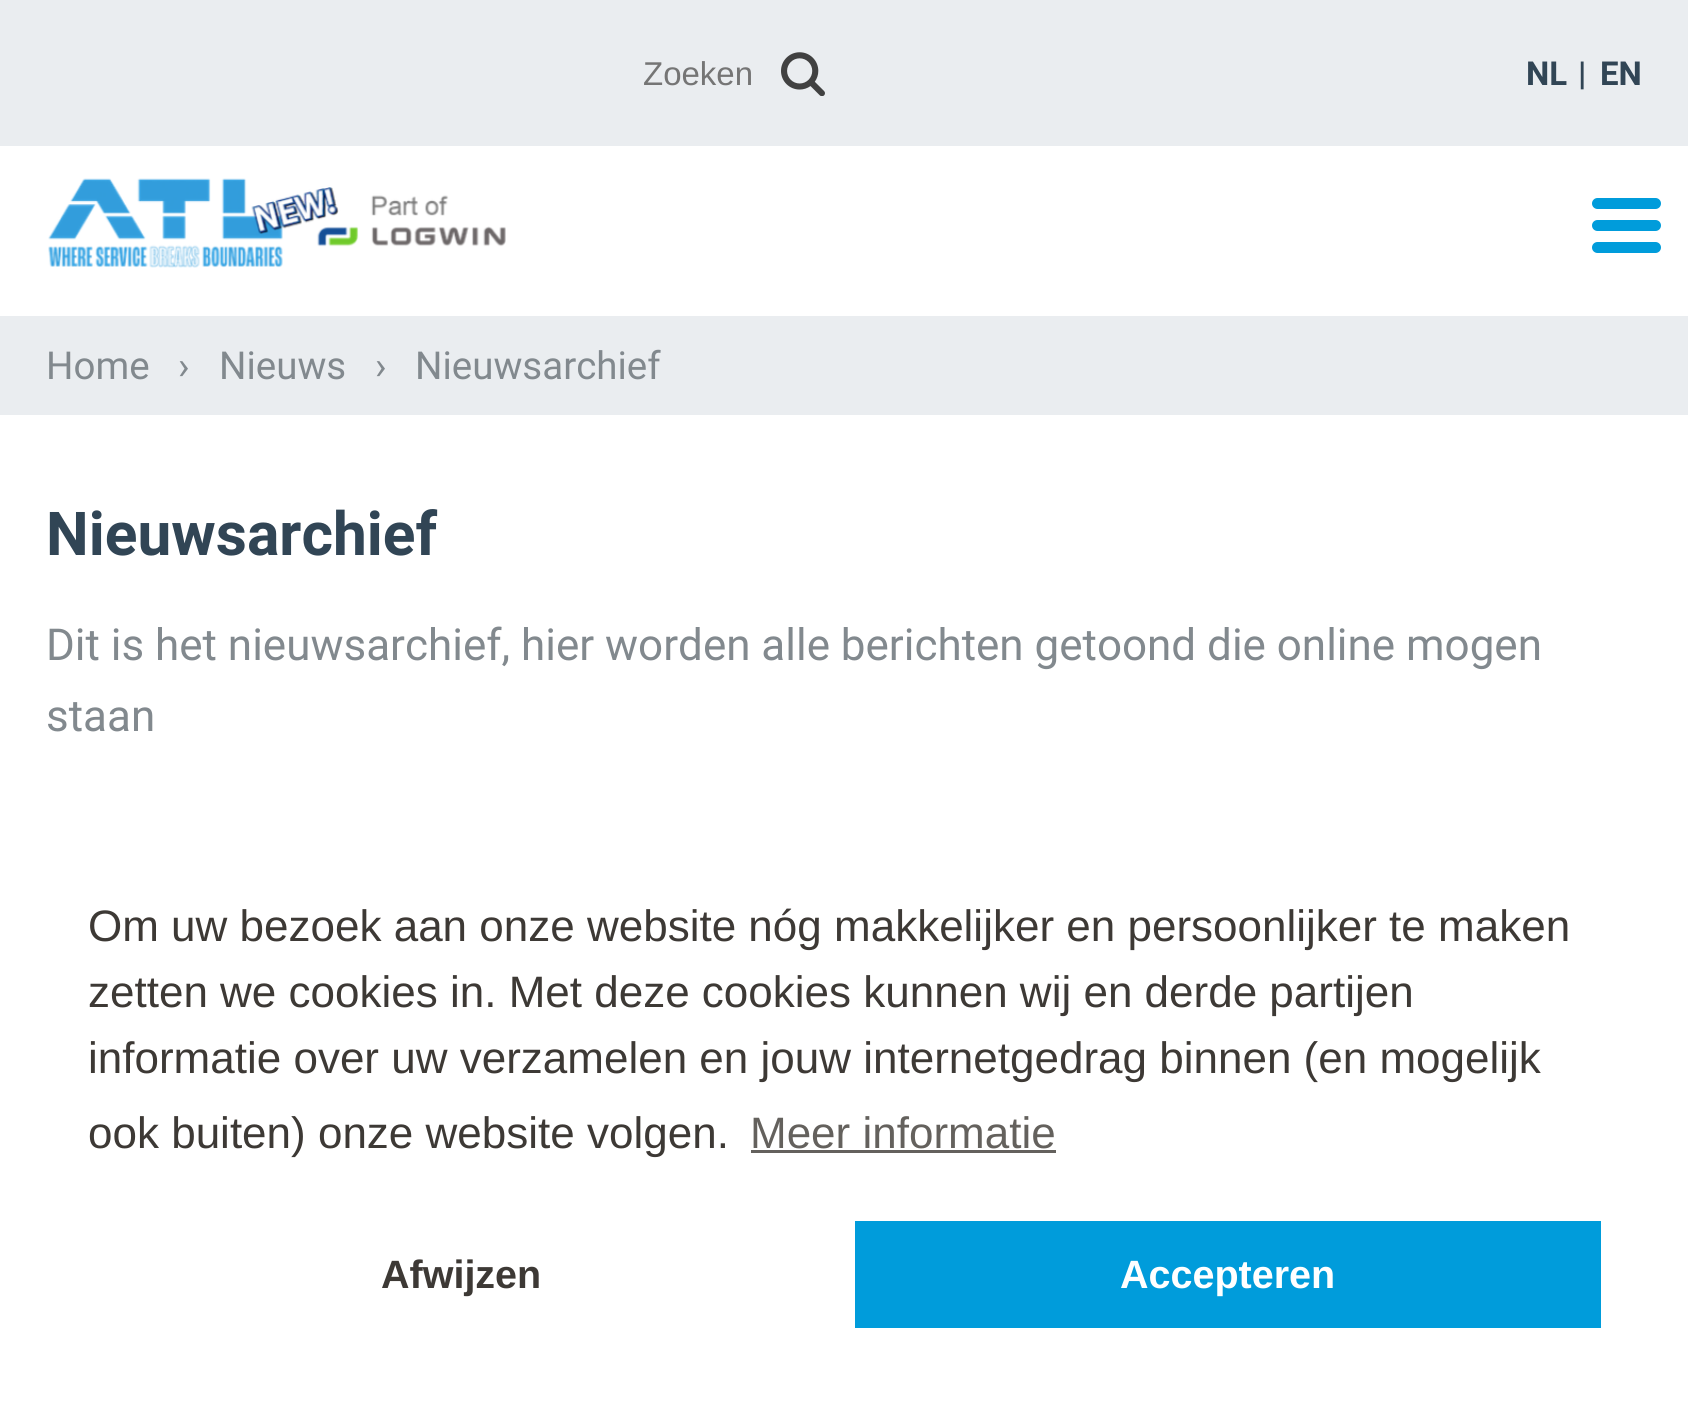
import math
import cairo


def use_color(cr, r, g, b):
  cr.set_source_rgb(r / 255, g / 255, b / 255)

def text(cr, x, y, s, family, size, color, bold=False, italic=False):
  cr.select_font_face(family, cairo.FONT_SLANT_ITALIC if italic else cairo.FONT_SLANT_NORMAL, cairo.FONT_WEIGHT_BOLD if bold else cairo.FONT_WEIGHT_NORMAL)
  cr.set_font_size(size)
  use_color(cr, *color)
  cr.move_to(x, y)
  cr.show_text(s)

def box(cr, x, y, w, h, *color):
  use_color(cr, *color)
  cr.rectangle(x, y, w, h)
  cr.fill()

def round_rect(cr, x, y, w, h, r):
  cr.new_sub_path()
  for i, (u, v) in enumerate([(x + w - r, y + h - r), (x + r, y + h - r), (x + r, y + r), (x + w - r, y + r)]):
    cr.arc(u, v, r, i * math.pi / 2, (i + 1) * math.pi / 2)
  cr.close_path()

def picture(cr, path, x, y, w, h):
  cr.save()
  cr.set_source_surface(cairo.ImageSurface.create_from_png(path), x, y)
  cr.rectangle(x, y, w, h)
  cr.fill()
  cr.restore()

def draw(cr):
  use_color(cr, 255, 255, 255)
  cr.paint()
  box(cr, 0, 0, 1688, 146, 234, 237, 240)
  picture(cr, "img_01.png", 781, 52, 44, 44)
  picture(cr, "img_02.png", 48, 178, 458, 90)
  use_color(cr, 0, 156, 219)
  round_rect(cr, 1592, 220, 69, 11, 5.5)
  cr.fill()
  round_rect(cr, 1592, 198, 69, 11, 5.5)
  cr.fill()
  round_rect(cr, 1592, 242, 69, 11, 5.5)
  cr.fill()
  box(cr, 0, 316, 1688, 99, 234, 237, 240)
  box(cr, 751, 1150, 305, 3, 100, 97, 93)
  box(cr, 855, 1221, 746, 107, 0, 156, 219)
  text(cr, 643, 85, "Zoeken", "Liberation Sans", 33, (117, 117, 117))
  text(cr, 1526, 85, "NL", "Roboto", 33, (49, 69, 85), bold=True)
  text(cr, 1578, 85, "|", "Roboto", 33, (49, 69, 85), bold=True)
  text(cr, 1600, 85, "EN", "Roboto", 33, (49, 69, 85), bold=True)
  text(cr, 46, 379, "Home", "Roboto", 38.5, (130, 137, 142))
  text(cr, 178, 379, "›", "Roboto", 38.5, (130, 137, 142))
  text(cr, 219, 379, "Nieuws", "Roboto", 38.5, (130, 137, 142))
  text(cr, 375, 379, "›", "Roboto", 38.5, (130, 137, 142))
  text(cr, 415, 379, "Nieuwsarchief", "Roboto", 38.5, (130, 137, 142))
  text(cr, 46, 555, "Nieuwsarchief", "Roboto", 60.5, (49, 69, 85), bold=True)
  text(cr, 46, 660, "Dit is het nieuwsarchief, hier worden alle berichten getoond die online mogen", "Roboto", 44, (130, 137, 142))
  text(cr, 46, 731, "staan", "Roboto", 44, (130, 137, 142))
  text(cr, 88, 941, "Om uw bezoek aan onze website nóg makkelijker en persoonlijker te maken", "Liberation Sans", 44, (61, 57, 53))
  text(cr, 88, 1007, "zetten we cookies in. Met deze cookies kunnen wij en derde partijen", "Liberation Sans", 44, (61, 57, 53))
  text(cr, 88, 1073, "informatie over uw verzamelen en jouw internetgedrag binnen (en mogelijk", "Liberation Sans", 44, (61, 57, 53))
  text(cr, 88, 1148, "ook buiten) onze website volgen.", "Liberation Sans", 44, (61, 57, 53))
  text(cr, 750, 1148, "Meer informatie", "Liberation Sans", 44, (100, 97, 93))
  text(cr, 381, 1288, "Afwijzen", "Liberation Sans", 39.5, (61, 57, 53), bold=True)
  text(cr, 1120, 1288, "Accepteren", "Liberation Sans", 39.5, (255, 255, 255), bold=True)


surface = cairo.ImageSurface(cairo.FORMAT_RGB24, 1688, 1414)
cr = cairo.Context(surface)
options = cairo.FontOptions()
options.set_hint_metrics(cairo.HINT_METRICS_OFF)
options.set_hint_style(cairo.HINT_STYLE_NONE)
cr.set_font_options(options)
cr.set_miter_limit(4)
draw(cr)
surface.write_to_png("out.png")
